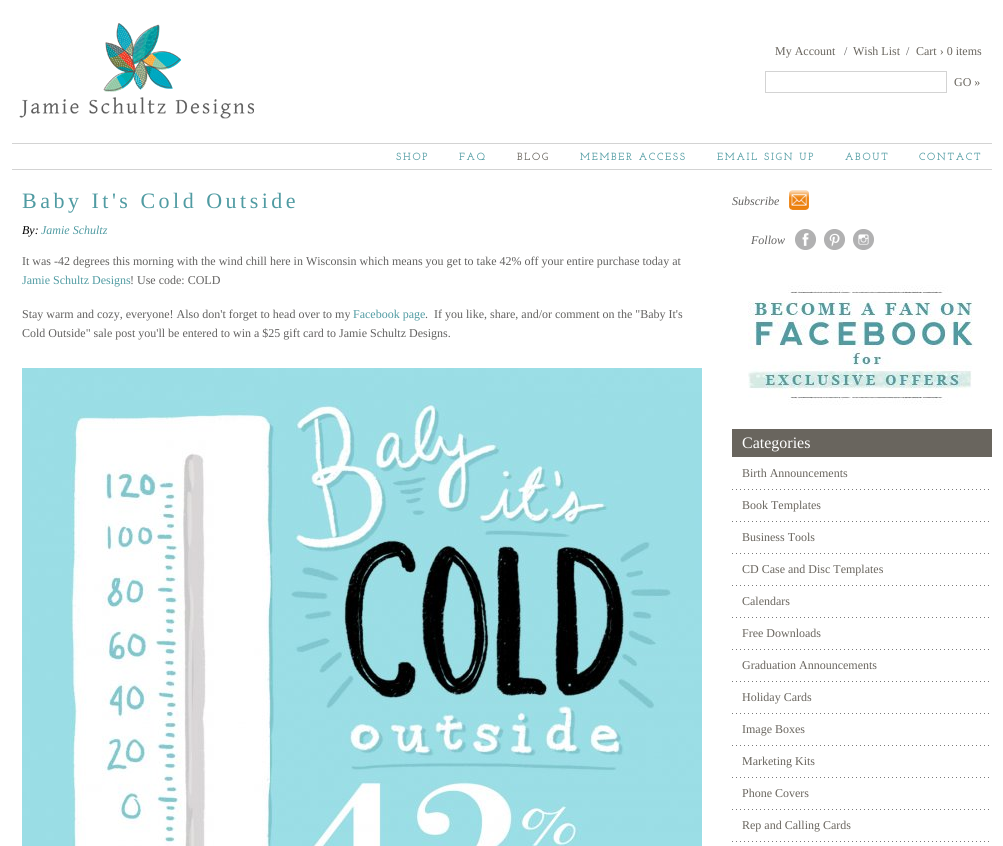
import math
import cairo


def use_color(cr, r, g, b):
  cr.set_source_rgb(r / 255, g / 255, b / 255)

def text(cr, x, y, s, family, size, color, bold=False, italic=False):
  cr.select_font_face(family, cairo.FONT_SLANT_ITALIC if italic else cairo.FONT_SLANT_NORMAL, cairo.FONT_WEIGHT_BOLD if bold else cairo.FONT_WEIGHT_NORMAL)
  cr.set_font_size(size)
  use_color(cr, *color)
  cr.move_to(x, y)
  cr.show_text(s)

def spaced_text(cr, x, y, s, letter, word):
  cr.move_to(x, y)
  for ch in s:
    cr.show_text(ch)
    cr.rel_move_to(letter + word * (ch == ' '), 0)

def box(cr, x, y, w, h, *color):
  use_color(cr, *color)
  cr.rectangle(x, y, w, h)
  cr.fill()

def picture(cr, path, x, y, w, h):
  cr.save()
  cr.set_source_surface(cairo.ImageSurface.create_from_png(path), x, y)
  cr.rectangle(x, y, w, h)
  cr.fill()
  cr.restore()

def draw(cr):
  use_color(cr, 255, 255, 255)
  cr.paint()
  picture(cr, "img_01.png", 19, 23, 235, 96)
  cr.rectangle(765.5, 71.5, 181, 21)
  use_color(cr, 211, 211, 211)
  cr.set_line_width(1)
  cr.stroke()
  box(cr, 12, 143, 980, 1, 211, 211, 211)
  box(cr, 12, 169, 980, 1, 211, 211, 211)
  picture(cr, "img_02.png", 22, 368, 680, 478)
  picture(cr, "img_03.png", 789, 190, 20, 20)
  picture(cr, "img_04.png", 795, 229, 21, 21)
  picture(cr, "img_05.png", 824, 229, 21, 21)
  picture(cr, "img_06.png", 853, 229, 21, 21)
  picture(cr, "img_07.png", 748, 285, 226, 120)
  box(cr, 732, 429, 260, 28, 105, 101, 94)
  picture(cr, "img_08.png", 732, 489, 257, 1)
  picture(cr, "img_08.png", 732, 521, 257, 1)
  picture(cr, "img_08.png", 732, 553, 257, 1)
  picture(cr, "img_08.png", 732, 585, 257, 1)
  picture(cr, "img_08.png", 732, 617, 257, 1)
  picture(cr, "img_08.png", 732, 649, 257, 1)
  picture(cr, "img_08.png", 732, 681, 257, 1)
  picture(cr, "img_08.png", 732, 713, 257, 1)
  picture(cr, "img_08.png", 732, 745, 257, 1)
  picture(cr, "img_08.png", 732, 777, 257, 1)
  picture(cr, "img_08.png", 732, 809, 257, 1)
  picture(cr, "img_08.png", 732, 841, 257, 1)
  text(cr, 775, 55, "My Account", "Liberation Serif", 12, (105, 101, 94))
  text(cr, 844, 55, "/", "Liberation Serif", 12, (98, 97, 96))
  text(cr, 853, 55, "Wish List", "Liberation Serif", 12, (105, 101, 94))
  text(cr, 906, 55, "/", "Liberation Serif", 12, (98, 97, 96))
  text(cr, 916, 55, "Cart › 0 items", "Liberation Serif", 12, (105, 101, 94))
  text(cr, 954, 86, "GO »", "Liberation Serif", 12, (105, 101, 94))
  cr.select_font_face("Josefin Slab", cairo.FONT_SLANT_NORMAL, cairo.FONT_WEIGHT_BOLD)
  cr.set_font_size(10)
  use_color(cr, 80, 155, 162)
  spaced_text(cr, 396, 160, "SHOP", 2, 0)
  spaced_text(cr, 459, 160, "FAQ", 2, 0)
  use_color(cr, 105, 101, 94)
  spaced_text(cr, 517, 160, "BLOG", 2, 0)
  use_color(cr, 80, 155, 162)
  spaced_text(cr, 580, 160, "MEMBER ACCESS", 2, 0)
  spaced_text(cr, 717, 160, "EMAIL SIGN UP", 2, 0)
  spaced_text(cr, 845, 160, "ABOUT", 2, 0)
  spaced_text(cr, 919, 160, "CONTACT", 2, 0)
  cr.select_font_face("Liberation Serif")
  cr.set_font_size(22)
  spaced_text(cr, 22, 208, "Baby It's Cold Outside", 3.5, 0)
  text(cr, 22, 234, "By:", "Liberation Serif", 12, (0, 0, 0), italic=True)
  text(cr, 41, 234, "Jamie Schultz", "Liberation Serif", 12, (80, 155, 162), italic=True)
  text(cr, 22, 265, "It was -42 degrees this morning with the wind chill here in Wisconsin which means you get to take 42% off your entire purchase today at", "Liberation Serif", 12, (98, 97, 96))
  text(cr, 22, 284, "Jamie Schultz Designs", "Liberation Serif", 12, (80, 155, 162))
  text(cr, 130, 284, "! Use code: COLD", "Liberation Serif", 12, (98, 97, 96))
  text(cr, 22, 318, "Stay warm and cozy, everyone! Also don't forget to head over to my", "Liberation Serif", 12, (98, 97, 96))
  text(cr, 353, 318, "Facebook page", "Liberation Serif", 12, (80, 155, 162))
  text(cr, 425, 318, ".  If you like, share, and/or comment on the \"Baby It's", "Liberation Serif", 12, (98, 97, 96))
  text(cr, 22, 337, "Cold Outside\" sale post you'll be entered to win a $25 gift card to Jamie Schultz Designs.", "Liberation Serif", 12, (98, 97, 96))
  text(cr, 732, 205, "Subscribe", "Liberation Serif", 12, (98, 97, 96), italic=True)
  text(cr, 751, 244, "Follow", "Liberation Serif", 12, (98, 97, 96), italic=True)
  text(cr, 742, 448, "Categories", "Liberation Serif", 16, (255, 255, 255))
  text(cr, 742, 477, "Birth Announcements", "Liberation Serif", 12, (105, 101, 94))
  text(cr, 742, 509, "Book Templates", "Liberation Serif", 12, (105, 101, 94))
  text(cr, 742, 541, "Business Tools", "Liberation Serif", 12, (105, 101, 94))
  text(cr, 742, 573, "CD Case and Disc Templates", "Liberation Serif", 12, (105, 101, 94))
  text(cr, 742, 605, "Calendars", "Liberation Serif", 12, (105, 101, 94))
  text(cr, 742, 637, "Free Downloads", "Liberation Serif", 12, (105, 101, 94))
  text(cr, 742, 669, "Graduation Announcements", "Liberation Serif", 12, (105, 101, 94))
  text(cr, 742, 701, "Holiday Cards", "Liberation Serif", 12, (105, 101, 94))
  text(cr, 742, 733, "Image Boxes", "Liberation Serif", 12, (105, 101, 94))
  text(cr, 742, 765, "Marketing Kits", "Liberation Serif", 12, (105, 101, 94))
  text(cr, 742, 797, "Phone Covers", "Liberation Serif", 12, (105, 101, 94))
  text(cr, 742, 829, "Rep and Calling Cards", "Liberation Serif", 12, (105, 101, 94))


surface = cairo.ImageSurface(cairo.FORMAT_RGB24, 1003, 846)
cr = cairo.Context(surface)
options = cairo.FontOptions()
options.set_hint_metrics(cairo.HINT_METRICS_OFF)
options.set_hint_style(cairo.HINT_STYLE_NONE)
cr.set_font_options(options)
cr.set_miter_limit(4)
draw(cr)
surface.write_to_png("out.png")
